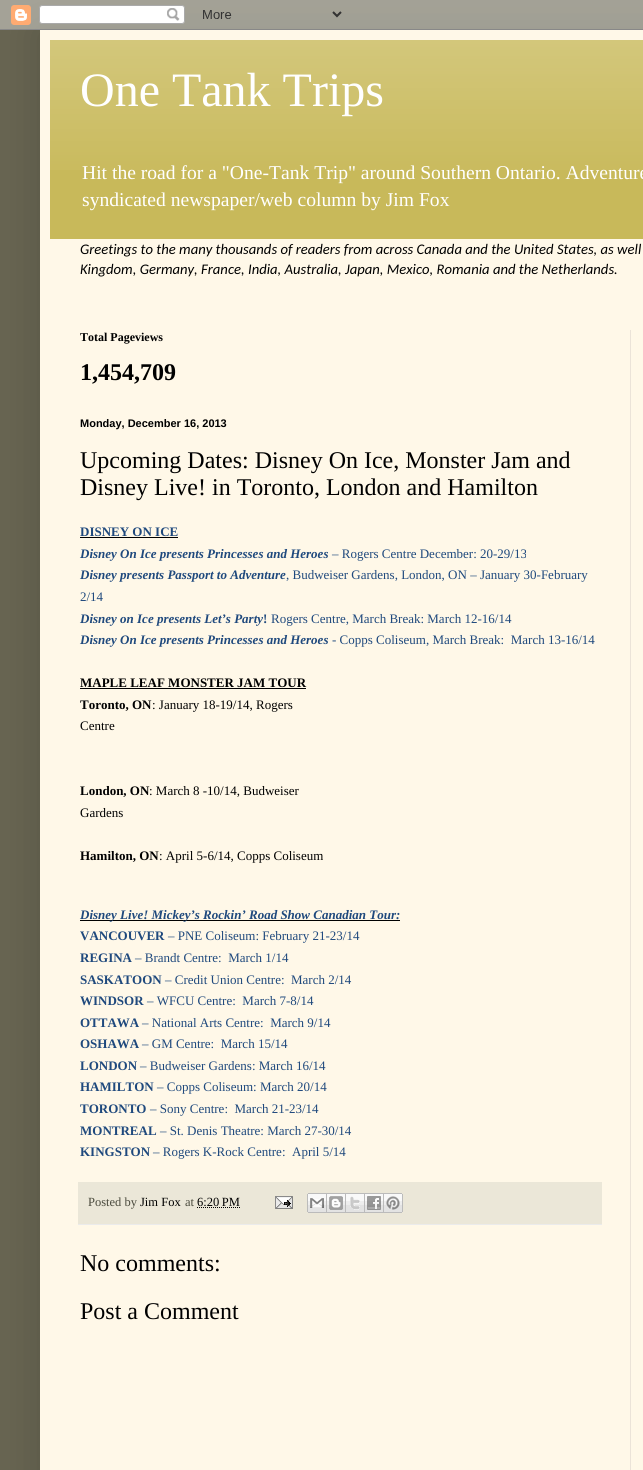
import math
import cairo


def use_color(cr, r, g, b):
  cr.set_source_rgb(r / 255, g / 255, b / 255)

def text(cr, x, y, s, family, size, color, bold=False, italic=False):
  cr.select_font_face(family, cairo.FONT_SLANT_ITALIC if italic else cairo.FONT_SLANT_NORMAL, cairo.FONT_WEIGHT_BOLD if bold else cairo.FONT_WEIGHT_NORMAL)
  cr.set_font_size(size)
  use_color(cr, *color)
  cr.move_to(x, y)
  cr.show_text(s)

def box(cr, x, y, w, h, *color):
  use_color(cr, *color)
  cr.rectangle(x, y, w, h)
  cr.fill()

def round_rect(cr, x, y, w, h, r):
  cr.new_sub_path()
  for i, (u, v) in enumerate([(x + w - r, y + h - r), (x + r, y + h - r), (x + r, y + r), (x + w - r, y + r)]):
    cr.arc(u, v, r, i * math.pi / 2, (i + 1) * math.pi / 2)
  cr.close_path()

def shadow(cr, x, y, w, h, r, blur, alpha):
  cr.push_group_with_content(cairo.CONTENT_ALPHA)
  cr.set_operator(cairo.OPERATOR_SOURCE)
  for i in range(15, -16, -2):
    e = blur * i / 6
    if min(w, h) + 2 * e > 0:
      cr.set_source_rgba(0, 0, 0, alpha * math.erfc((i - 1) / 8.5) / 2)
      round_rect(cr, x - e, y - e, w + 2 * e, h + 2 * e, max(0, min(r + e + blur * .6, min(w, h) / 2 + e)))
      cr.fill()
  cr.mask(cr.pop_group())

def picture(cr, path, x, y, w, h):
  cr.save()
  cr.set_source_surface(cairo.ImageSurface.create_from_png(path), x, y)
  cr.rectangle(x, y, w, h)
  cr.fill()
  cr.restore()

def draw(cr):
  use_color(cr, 103, 100, 81)
  cr.paint()
  use_color(cr, 0, 0, 0)
  shadow(cr, 40, 30, 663, 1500, 0, 20, 0.15)
  picture(cr, "img_01.png", 0, 0, 643, 30)
  box(cr, 40, 30, 603, 1440, 255, 248, 232)
  box(cr, 50, 40, 593, 199, 200, 185, 90)
  picture(cr, "img_02.png", 50, 40, 593, 130)
  box(cr, 80, 537, 98, 1, 0, 0, 0)
  box(cr, 80, 688, 226, 1, 0, 0, 0)
  box(cr, 80, 920, 320, 1, 0, 0, 0)
  box(cr, 78, 1182, 524, 42, 235, 231, 216)
  box(cr, 78, 1224, 524, 1, 235, 235, 235)
  cr.new_path()
  cr.move_to(197, 1207.5)
  cr.line_to(240, 1207.5)
  use_color(cr, 0, 0, 0)
  cr.set_line_width(1)
  cr.set_dash([1, 1])
  cr.stroke()
  picture(cr, "img_03.png", 275, 1196, 18, 13)
  picture(cr, "img_04.png", 307, 1193, 20, 20)
  picture(cr, "img_05.png", 327, 1193, 19, 20)
  picture(cr, "img_06.png", 346, 1193, 19, 20)
  picture(cr, "img_07.png", 365, 1193, 19, 20)
  picture(cr, "img_08.png", 384, 1193, 19, 20)
  box(cr, 630, 330, 1, 1140, 235, 227, 216)
  text(cr, 80, 106, "One Tank Trips", "Liberation Serif", 48, (255, 255, 255))
  text(cr, 82, 179, "Hit the road for a \"One-Tank Trip\" around Southern Ontario. Adventure", "Liberation Serif", 19.6, (255, 255, 255))
  text(cr, 82, 206, "syndicated newspaper/web column by Jim Fox", "Liberation Serif", 19.6, (255, 255, 255))
  text(cr, 80, 254, "Greetings to the many thousands of readers from across Canada and the United States, as well", "Carlito", 14.65, (0, 0, 0), italic=True)
  text(cr, 80, 274, "Kingdom, Germany, France, India, Australia, Japan, Mexico, Romania and the Netherlands.", "Carlito", 14.65, (0, 0, 0), italic=True)
  text(cr, 80, 341, "Total Pageviews", "Liberation Serif", 12, (0, 0, 0), bold=True)
  text(cr, 80, 380, "1,454,709", "Liberation Serif", 24, (0, 0, 0), bold=True)
  text(cr, 80, 427, "Monday, December 16, 2013", "Liberation Sans", 11, (0, 0, 0), bold=True)
  text(cr, 80, 468, "Upcoming Dates: Disney On Ice, Monster Jam and", "Liberation Serif", 24, (0, 0, 0))
  text(cr, 80, 495, "Disney Live! in Toronto, London and Hamilton", "Liberation Serif", 24, (0, 0, 0))
  text(cr, 80, 536, "DISNEY ON ICE", "Liberation Serif", 13, (31, 73, 125), bold=True)
  text(cr, 80, 558, "Disney On Ice presents Princesses and Heroes", "Liberation Serif", 13, (31, 73, 125), bold=True, italic=True)
  text(cr, 332, 558, "– Rogers Centre December: 20-29/13", "Liberation Serif", 13, (31, 73, 125))
  text(cr, 80, 579, "Disney presents Passport to Adventure", "Liberation Serif", 13, (31, 73, 125), bold=True, italic=True)
  text(cr, 286, 579, ", Budweiser Gardens, London, ON – January 30-February", "Liberation Serif", 13, (31, 73, 125))
  text(cr, 80, 601, "2/14", "Liberation Serif", 13, (31, 73, 125))
  text(cr, 80, 623, "Disney on Ice presents Let’s Party", "Liberation Serif", 13, (31, 73, 125), bold=True, italic=True)
  text(cr, 263, 623, "!", "Liberation Serif", 13, (31, 73, 125), bold=True)
  text(cr, 271, 623, "Rogers Centre, March Break: March 12-16/14", "Liberation Serif", 13, (31, 73, 125))
  text(cr, 80, 644, "Disney On Ice presents Princesses and Heroes", "Liberation Serif", 13, (31, 73, 125), bold=True, italic=True)
  text(cr, 332, 644, "- Copps Coliseum, March Break:  March 13-16/14", "Liberation Serif", 13, (31, 73, 125))
  text(cr, 80, 687, "MAPLE LEAF MONSTER JAM TOUR", "Liberation Serif", 13, (0, 0, 0), bold=True)
  text(cr, 80, 709, "Toronto, ON", "Liberation Serif", 13, (0, 0, 0), bold=True)
  text(cr, 152, 709, ": January 18-19/14, Rogers", "Liberation Serif", 13, (0, 0, 0))
  text(cr, 80, 730, "Centre", "Liberation Serif", 13, (0, 0, 0))
  text(cr, 80, 795, "London, ON", "Liberation Serif", 13, (0, 0, 0), bold=True)
  text(cr, 149, 795, ": March 8 -10/14, Budweiser", "Liberation Serif", 13, (0, 0, 0))
  text(cr, 80, 817, "Gardens", "Liberation Serif", 13, (0, 0, 0))
  text(cr, 80, 860, "Hamilton, ON", "Liberation Serif", 13, (0, 0, 0), bold=True)
  text(cr, 159, 860, ": April 5-6/14, Copps Coliseum", "Liberation Serif", 13, (0, 0, 0))
  text(cr, 80, 919, "Disney Live! Mickey’s Rockin’ Road Show Canadian Tour:", "Liberation Serif", 13, (31, 73, 125), bold=True, italic=True)
  text(cr, 80, 940, "VANCOUVER", "Liberation Serif", 13, (31, 73, 125), bold=True)
  text(cr, 168, 940, "– PNE Coliseum: February 21-23/14", "Liberation Serif", 13, (31, 73, 125))
  text(cr, 80, 962, "REGINA", "Liberation Serif", 13, (31, 73, 125), bold=True)
  text(cr, 135, 962, "– Brandt Centre:  March 1/14", "Liberation Serif", 13, (31, 73, 125))
  text(cr, 80, 984, "SASKATOON", "Liberation Serif", 13, (31, 73, 125), bold=True)
  text(cr, 165, 984, "– Credit Union Centre:  March 2/14", "Liberation Serif", 13, (31, 73, 125))
  text(cr, 80, 1005, "WINDSOR", "Liberation Serif", 13, (31, 73, 125), bold=True)
  text(cr, 147, 1005, "– WFCU Centre:  March 7-8/14", "Liberation Serif", 13, (31, 73, 125))
  text(cr, 80, 1027, "OTTAWA", "Liberation Serif", 13, (31, 73, 125), bold=True)
  text(cr, 142, 1027, "– National Arts Centre:  March 9/14", "Liberation Serif", 13, (31, 73, 125))
  text(cr, 80, 1048, "OSHAWA", "Liberation Serif", 13, (31, 73, 125), bold=True)
  text(cr, 142, 1048, "– GM Centre:  March 15/14", "Liberation Serif", 13, (31, 73, 125))
  text(cr, 80, 1070, "LONDON", "Liberation Serif", 13, (31, 73, 125), bold=True)
  text(cr, 140, 1070, "– Budweiser Gardens: March 16/14", "Liberation Serif", 13, (31, 73, 125))
  text(cr, 80, 1091, "HAMILTON", "Liberation Serif", 13, (31, 73, 125), bold=True)
  text(cr, 157, 1091, "– Copps Coliseum: March 20/14", "Liberation Serif", 13, (31, 73, 125))
  text(cr, 80, 1113, "TORONTO", "Liberation Serif", 13, (31, 73, 125), bold=True)
  text(cr, 150, 1113, "– Sony Centre:  March 21-23/14", "Liberation Serif", 13, (31, 73, 125))
  text(cr, 80, 1135, "MONTREAL", "Liberation Serif", 13, (31, 73, 125), bold=True)
  text(cr, 160, 1135, "– St. Denis Theatre: March 27-30/14", "Liberation Serif", 13, (31, 73, 125))
  text(cr, 80, 1156, "KINGSTON", "Liberation Serif", 13, (31, 73, 125), bold=True)
  text(cr, 153, 1156, "– Rogers K-Rock Centre:  April 5/14", "Liberation Serif", 13, (31, 73, 125))
  text(cr, 88, 1206, "Posted by", "Liberation Serif", 12.5, (74, 74, 61))
  text(cr, 140, 1206, "Jim Fox", "Liberation Serif", 12.5, (0, 0, 0))
  text(cr, 185, 1206, "at", "Liberation Serif", 12.5, (74, 74, 61))
  text(cr, 197, 1206, "6:20 PM", "Liberation Serif", 12.5, (0, 0, 0))
  text(cr, 80, 1271, "No comments:", "Liberation Serif", 24, (0, 0, 0))
  text(cr, 80, 1319, "Post a Comment", "Liberation Serif", 24, (0, 0, 0))


surface = cairo.ImageSurface(cairo.FORMAT_RGB24, 643, 1470)
cr = cairo.Context(surface)
options = cairo.FontOptions()
options.set_hint_metrics(cairo.HINT_METRICS_OFF)
options.set_hint_style(cairo.HINT_STYLE_NONE)
cr.set_font_options(options)
cr.set_miter_limit(4)
draw(cr)
surface.write_to_png("out.png")
